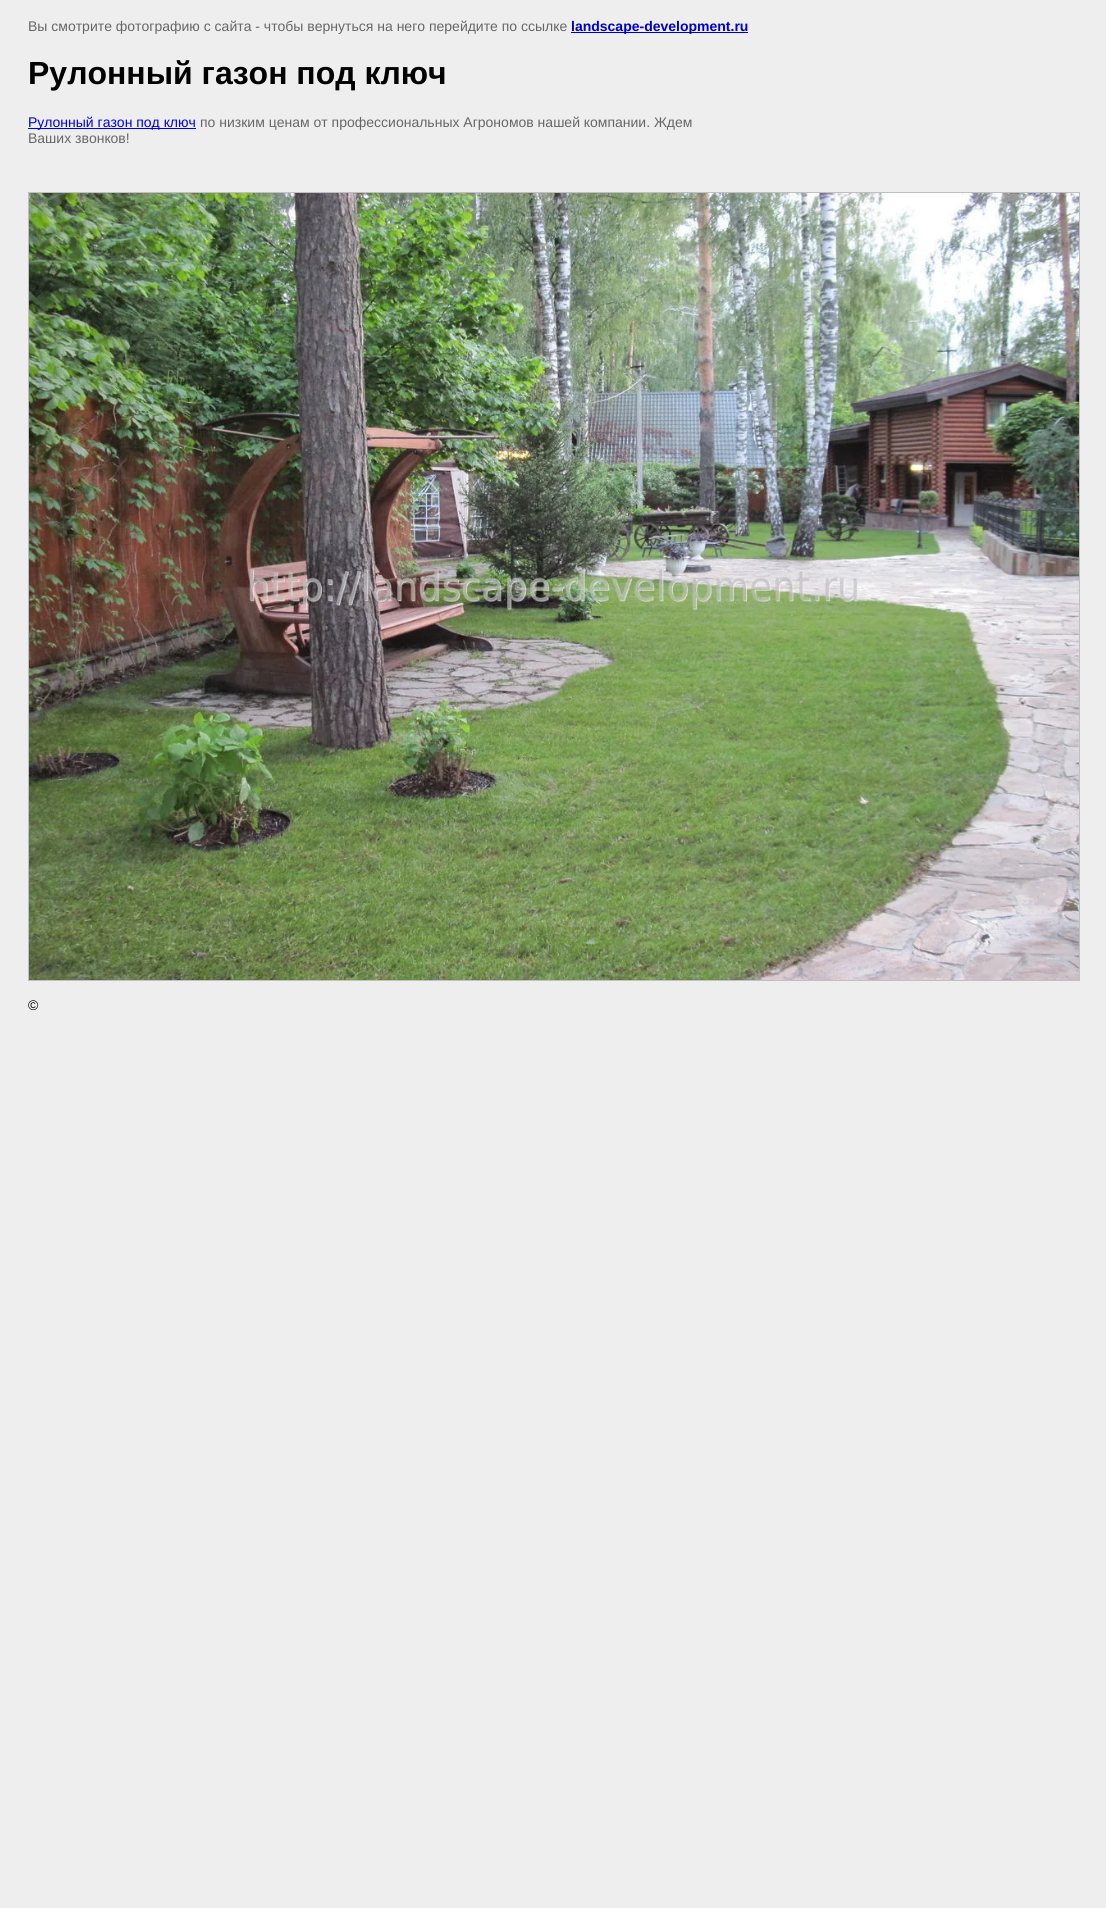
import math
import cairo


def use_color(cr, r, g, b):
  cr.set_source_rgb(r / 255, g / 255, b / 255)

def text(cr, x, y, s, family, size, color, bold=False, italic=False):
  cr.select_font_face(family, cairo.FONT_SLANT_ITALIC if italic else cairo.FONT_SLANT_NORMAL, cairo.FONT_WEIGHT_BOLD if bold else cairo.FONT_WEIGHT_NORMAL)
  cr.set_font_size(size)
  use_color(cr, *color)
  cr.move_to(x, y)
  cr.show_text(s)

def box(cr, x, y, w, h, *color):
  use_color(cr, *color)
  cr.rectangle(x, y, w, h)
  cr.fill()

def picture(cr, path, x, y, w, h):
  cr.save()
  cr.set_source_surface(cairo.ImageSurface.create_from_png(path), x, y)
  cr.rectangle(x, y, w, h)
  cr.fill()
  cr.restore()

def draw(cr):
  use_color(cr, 238, 238, 238)
  cr.paint()
  box(cr, 571, 32, 177, 1, 0, 0, 204)
  box(cr, 28, 128, 168, 1, 0, 0, 238)
  cr.rectangle(28.5, 192.5, 1051, 788)
  use_color(cr, 192, 192, 192)
  cr.set_line_width(1)
  cr.stroke()
  picture(cr, "img_01.png", 29, 193, 1050, 787)
  text(cr, 28, 31, "Вы смотрите фотографию с сайта - чтобы вернуться на него перейдите по ссылке", "Liberation Sans", 14, (102, 102, 102))
  text(cr, 571, 31, "landscape-development.ru", "Liberation Sans", 14, (0, 0, 204), bold=True)
  text(cr, 28, 84, "Рулонный газон под ключ", "Liberation Sans", 32, (0, 0, 0), bold=True)
  text(cr, 28, 127, "Рулонный газон под ключ", "Liberation Sans", 14, (0, 0, 238))
  text(cr, 200, 127, "по низким ценам от профессиональных Агрономов нашей компании. Ждем", "Liberation Sans", 14, (102, 102, 102))
  text(cr, 28, 143, "Ваших звонков!", "Liberation Sans", 14, (102, 102, 102))
  text(cr, 28, 1010, "©", "Liberation Sans", 14, (0, 0, 0))


surface = cairo.ImageSurface(cairo.FORMAT_RGB24, 1106, 1908)
cr = cairo.Context(surface)
options = cairo.FontOptions()
options.set_hint_metrics(cairo.HINT_METRICS_OFF)
options.set_hint_style(cairo.HINT_STYLE_NONE)
cr.set_font_options(options)
cr.set_miter_limit(4)
draw(cr)
surface.write_to_png("out.png")
